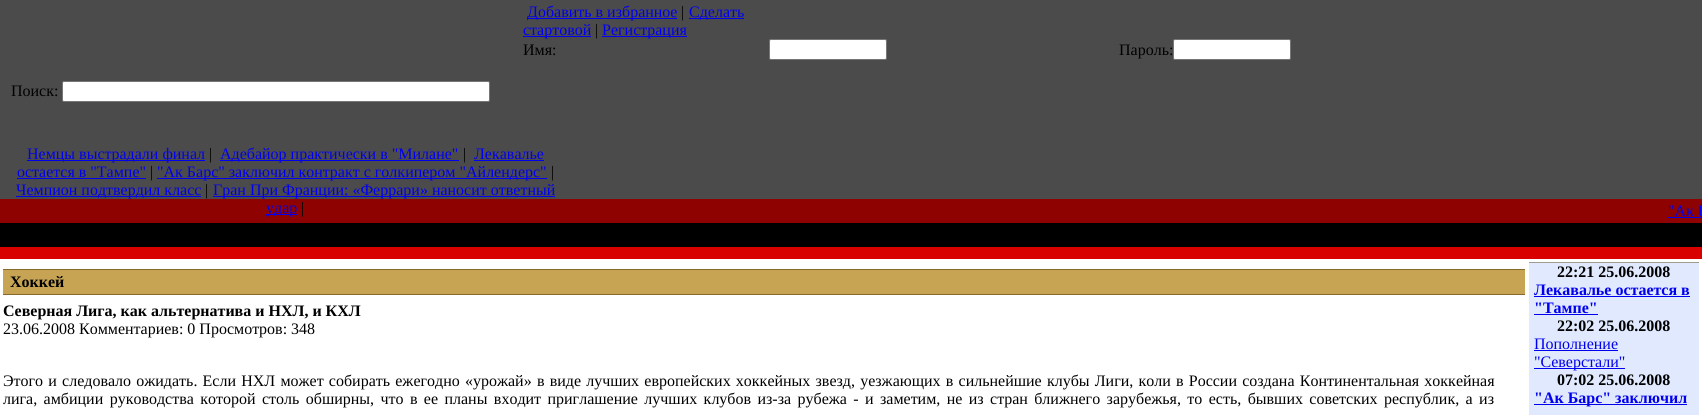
import math
import cairo


def use_color(cr, r, g, b):
  cr.set_source_rgb(r / 255, g / 255, b / 255)

def text(cr, x, y, s, family, size, color, bold=False, italic=False):
  cr.select_font_face(family, cairo.FONT_SLANT_ITALIC if italic else cairo.FONT_SLANT_NORMAL, cairo.FONT_WEIGHT_BOLD if bold else cairo.FONT_WEIGHT_NORMAL)
  cr.set_font_size(size)
  use_color(cr, *color)
  cr.move_to(x, y)
  cr.show_text(s)

def spaced_text(cr, x, y, s, letter, word):
  cr.move_to(x, y)
  for ch in s:
    cr.show_text(ch)
    cr.rel_move_to(letter + word * (ch == ' '), 0)

def box(cr, x, y, w, h, *color):
  use_color(cr, *color)
  cr.rectangle(x, y, w, h)
  cr.fill()

def round_rect(cr, x, y, w, h, r):
  cr.new_sub_path()
  for i, (u, v) in enumerate([(x + w - r, y + h - r), (x + r, y + h - r), (x + r, y + r), (x + w - r, y + r)]):
    cr.arc(u, v, r, i * math.pi / 2, (i + 1) * math.pi / 2)
  cr.close_path()

def draw(cr):
  use_color(cr, 75, 75, 75)
  cr.paint()
  box(cr, 527, 18, 150, 1, 0, 0, 238)
  box(cr, 689, 18, 55, 1, 0, 0, 238)
  box(cr, 523, 36, 68, 1, 0, 0, 238)
  box(cr, 602, 36, 85, 1, 0, 0, 238)
  use_color(cr, 255, 255, 255)
  round_rect(cr, 769.5, 39.5, 117, 20, 1.5)
  cr.fill_preserve()
  use_color(cr, 118, 118, 118)
  cr.set_line_width(1)
  cr.stroke()
  use_color(cr, 255, 255, 255)
  round_rect(cr, 1173.5, 39.5, 117, 20, 1.5)
  cr.fill_preserve()
  use_color(cr, 118, 118, 118)
  cr.stroke()
  use_color(cr, 255, 255, 255)
  round_rect(cr, 62.5, 81.5, 427, 20, 1.5)
  cr.fill_preserve()
  use_color(cr, 118, 118, 118)
  cr.stroke()
  box(cr, 27, 160, 178, 1, 0, 0, 238)
  box(cr, 220, 160, 239, 1, 0, 0, 238)
  box(cr, 474, 160, 70, 1, 0, 0, 238)
  box(cr, 17, 178, 129, 1, 0, 0, 238)
  box(cr, 157, 178, 390, 1, 0, 0, 238)
  box(cr, 16, 196, 185, 1, 0, 0, 238)
  box(cr, 213, 196, 342, 1, 0, 0, 238)
  box(cr, 0, 199, 1702, 24, 142, 2, 1)
  box(cr, 266, 214, 31, 1, 0, 0, 238)
  box(cr, 1668, 217, 34, 1, 0, 0, 238)
  box(cr, 0, 223, 1702, 24, 0, 0, 0)
  box(cr, 0, 247, 1702, 12, 217, 0, 0)
  box(cr, 0, 259, 1702, 156, 255, 255, 255)
  box(cr, 3, 270, 1522, 24, 198, 164, 83)
  box(cr, 3, 269, 1522, 1, 133, 106, 41)
  box(cr, 3, 294, 1522, 1, 133, 106, 41)
  box(cr, 1529, 262, 170, 1, 157, 156, 142)
  box(cr, 1529, 263, 170, 152, 224, 233, 253)
  box(cr, 1534, 296, 156, 1, 0, 0, 238)
  box(cr, 1534, 314, 64, 1, 0, 0, 238)
  box(cr, 1534, 350, 84, 1, 0, 0, 238)
  box(cr, 1534, 368, 91, 1, 0, 0, 238)
  box(cr, 1534, 404, 153, 1, 0, 0, 238)
  text(cr, 527, 17, "Добавить в избранное", "Liberation Serif", 16, (0, 0, 238))
  text(cr, 681, 17, "|", "Liberation Serif", 16, (0, 0, 0))
  text(cr, 689, 17, "Сделать", "Liberation Serif", 16, (0, 0, 238))
  text(cr, 523, 35, "стартовой", "Liberation Serif", 16, (0, 0, 238))
  text(cr, 595, 35, "|", "Liberation Serif", 16, (0, 0, 0))
  text(cr, 602, 35, "Регистрация", "Liberation Serif", 16, (0, 0, 238))
  text(cr, 523, 55, "Имя:", "Liberation Serif", 16, (0, 0, 0))
  text(cr, 1119, 55, "Пароль:", "Liberation Serif", 16, (0, 0, 0))
  text(cr, 11, 96, "Поиск:", "Liberation Serif", 16, (0, 0, 0))
  text(cr, 27, 159, "Немцы выстрадали финал", "Liberation Serif", 16, (0, 0, 238))
  text(cr, 209, 159, "|", "Liberation Serif", 16, (0, 0, 0))
  text(cr, 220, 159, "Адебайор практически в \"Милане\"", "Liberation Serif", 16, (0, 0, 238))
  text(cr, 463, 159, "|", "Liberation Serif", 16, (0, 0, 0))
  text(cr, 474, 159, "Лекавалье", "Liberation Serif", 16, (0, 0, 238))
  text(cr, 17, 177, "остается в \"Тампе\"", "Liberation Serif", 16, (0, 0, 238))
  text(cr, 150, 177, "|", "Liberation Serif", 16, (0, 0, 0))
  text(cr, 157, 177, "\"Ак Барс\" заключил контракт с голкипером \"Айлендерс\"", "Liberation Serif", 16, (0, 0, 238))
  text(cr, 551, 177, "|", "Liberation Serif", 16, (0, 0, 0))
  text(cr, 16, 195, "Чемпион подтвердил класс", "Liberation Serif", 16, (0, 0, 238))
  text(cr, 205, 195, "|", "Liberation Serif", 16, (0, 0, 0))
  text(cr, 213, 195, "Гран При Франции: «Феррари» наносит ответный", "Liberation Serif", 16, (0, 0, 238))
  text(cr, 266, 213, "удар", "Liberation Serif", 16, (0, 0, 238))
  text(cr, 301, 213, "|", "Liberation Serif", 16, (0, 0, 0))
  text(cr, 1668, 216, "\"Ак Б", "Liberation Serif", 16, (0, 0, 238))
  text(cr, 10, 287, "Хоккей", "Liberation Serif", 16, (0, 0, 0), bold=True)
  text(cr, 3, 316, "Северная Лига, как альтернатива и НХЛ, и КХЛ", "Liberation Serif", 16, (0, 0, 0), bold=True)
  text(cr, 3, 334, "23.06.2008 Комментариев: 0 Просмотров: 348", "Liberation Serif", 16, (0, 0, 0))
  spaced_text(cr, 3, 386, "Этого и следовало ожидать. Если НХЛ может собирать ежегодно «урожай» в виде лучших европейских хоккейных звезд, уезжающих в сильнейшие клубы Лиги, коли в России создана Континентальная хоккейная", 0, 1.2)
  spaced_text(cr, 3, 404, "лига, амбиции руководства которой столь обширны, что в ее планы входит приглашение лучших клубов из-за рубежа - и заметим, не из стран ближнего зарубежья, то есть, бывших советских республик, а из", 0, 2.4)
  text(cr, 1557, 277, "22:21 25.06.2008", "Liberation Serif", 16, (0, 0, 0), bold=True)
  text(cr, 1534, 295, "Лекавалье остается в", "Liberation Serif", 16, (0, 0, 238), bold=True)
  text(cr, 1534, 313, "\"Тампе\"", "Liberation Serif", 16, (0, 0, 238), bold=True)
  text(cr, 1557, 331, "22:02 25.06.2008", "Liberation Serif", 16, (0, 0, 0), bold=True)
  text(cr, 1534, 349, "Пополнение", "Liberation Serif", 16, (0, 0, 238))
  text(cr, 1534, 367, "\"Северстали\"", "Liberation Serif", 16, (0, 0, 238))
  text(cr, 1557, 385, "07:02 25.06.2008", "Liberation Serif", 16, (0, 0, 0), bold=True)
  text(cr, 1534, 403, "\"Ак Барс\" заключил", "Liberation Serif", 16, (0, 0, 238), bold=True)


surface = cairo.ImageSurface(cairo.FORMAT_RGB24, 1702, 415)
cr = cairo.Context(surface)
options = cairo.FontOptions()
options.set_hint_metrics(cairo.HINT_METRICS_OFF)
options.set_hint_style(cairo.HINT_STYLE_NONE)
cr.set_font_options(options)
cr.set_miter_limit(4)
draw(cr)
surface.write_to_png("out.png")
